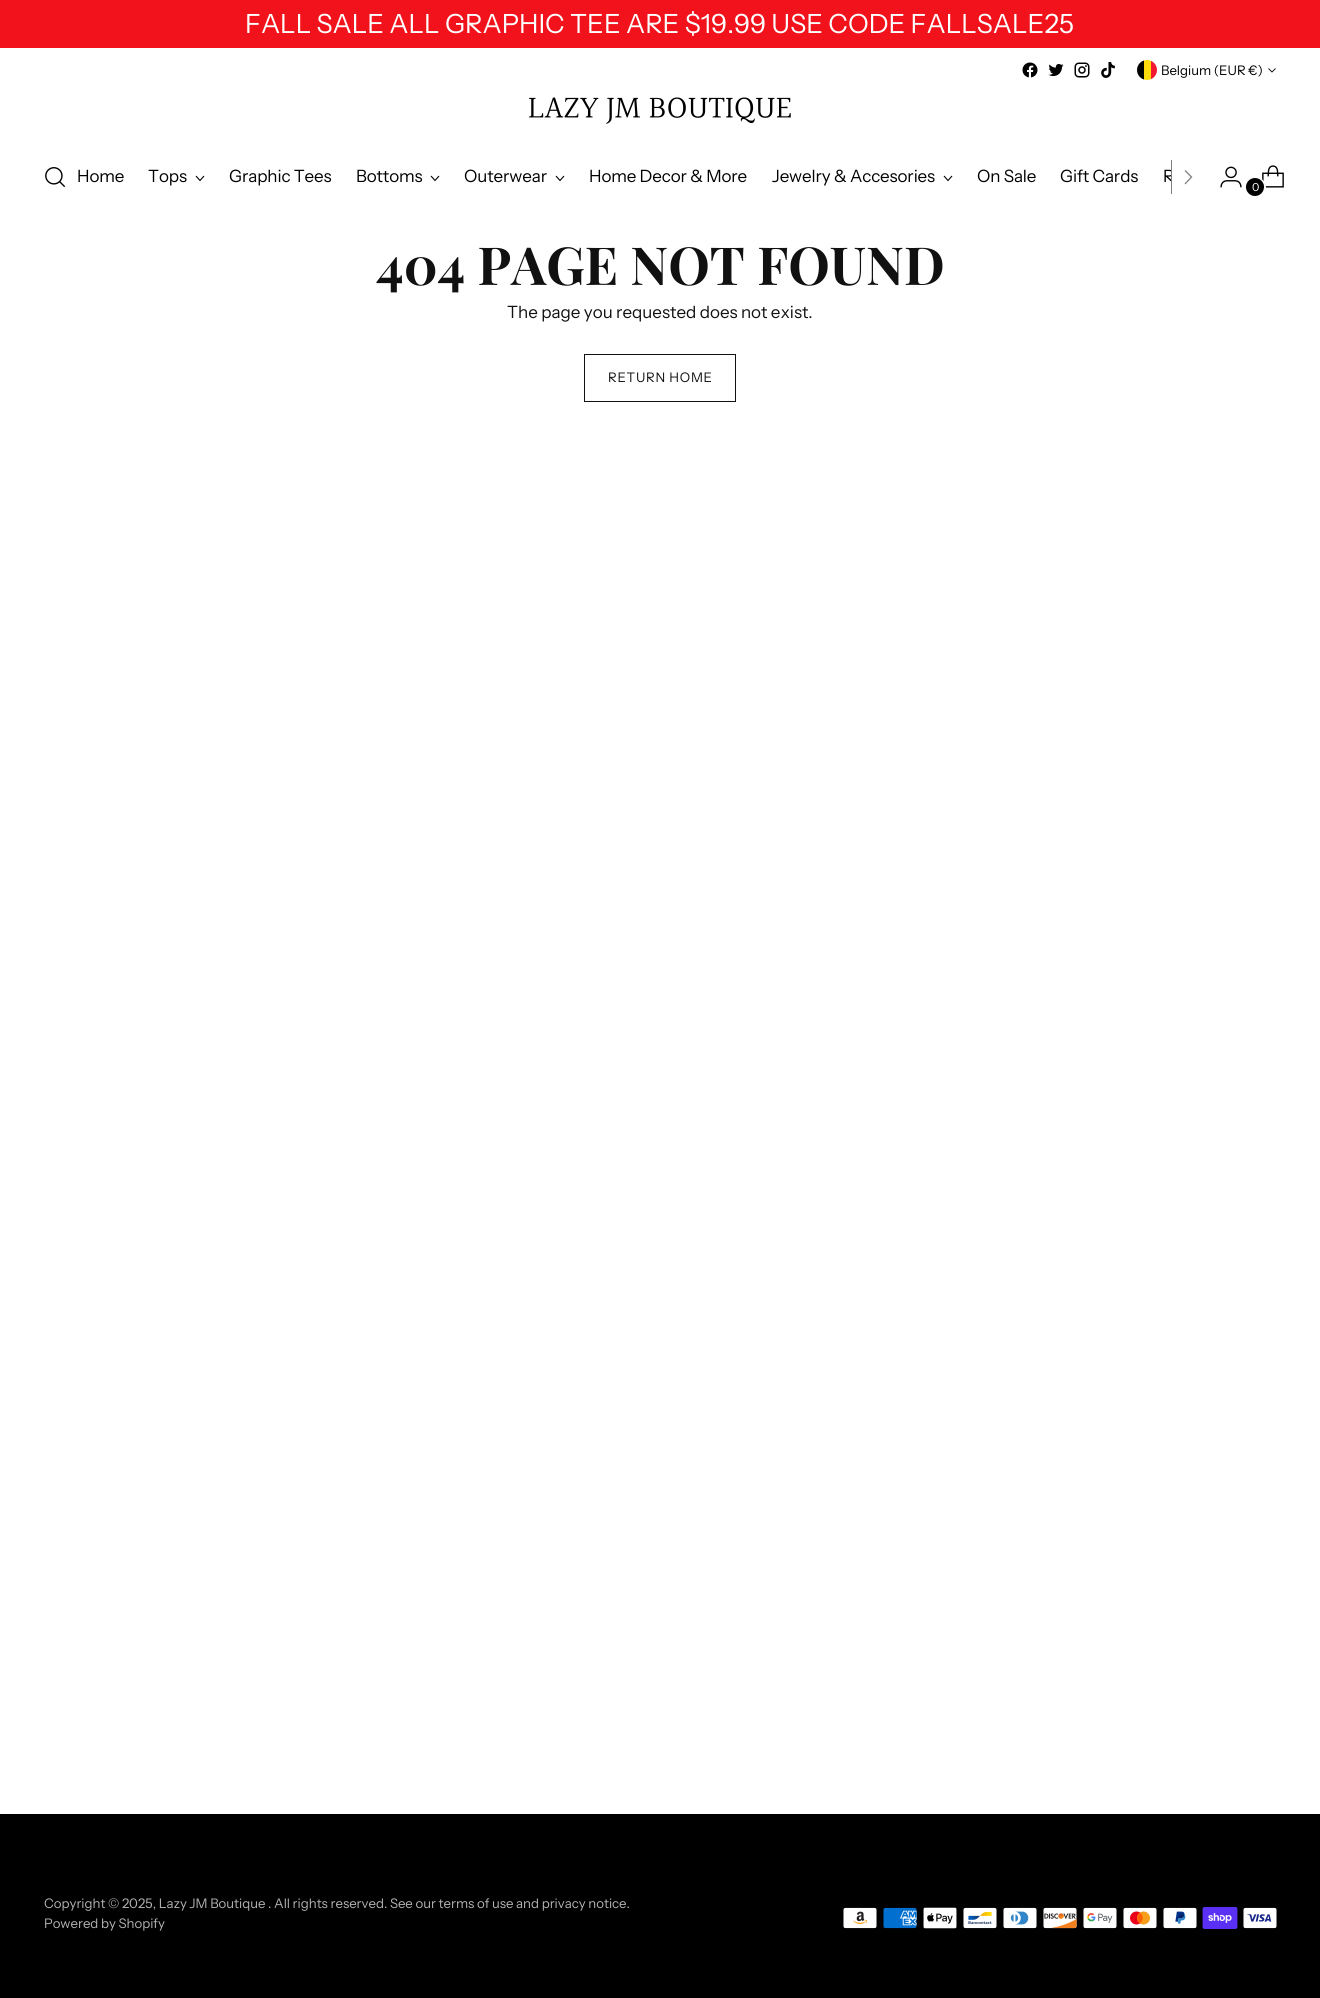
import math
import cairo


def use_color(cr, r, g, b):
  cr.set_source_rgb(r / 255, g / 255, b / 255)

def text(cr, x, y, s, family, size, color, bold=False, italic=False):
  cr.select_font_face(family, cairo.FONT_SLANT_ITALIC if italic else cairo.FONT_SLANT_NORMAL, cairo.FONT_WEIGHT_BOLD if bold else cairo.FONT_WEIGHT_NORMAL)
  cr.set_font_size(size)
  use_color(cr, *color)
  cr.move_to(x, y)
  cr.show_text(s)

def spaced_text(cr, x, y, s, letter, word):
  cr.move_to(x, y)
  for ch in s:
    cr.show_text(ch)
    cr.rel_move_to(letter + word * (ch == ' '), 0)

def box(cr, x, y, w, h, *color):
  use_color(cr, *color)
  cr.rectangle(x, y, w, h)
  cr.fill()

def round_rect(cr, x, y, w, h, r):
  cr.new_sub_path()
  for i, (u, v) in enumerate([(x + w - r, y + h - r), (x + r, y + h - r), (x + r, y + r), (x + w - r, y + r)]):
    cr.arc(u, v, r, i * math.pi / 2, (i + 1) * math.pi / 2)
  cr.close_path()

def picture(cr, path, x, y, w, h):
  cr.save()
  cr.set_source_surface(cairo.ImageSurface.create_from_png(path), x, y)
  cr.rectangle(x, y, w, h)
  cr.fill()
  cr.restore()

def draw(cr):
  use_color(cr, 255, 255, 255)
  cr.paint()
  box(cr, 0, 0, 1320, 48, 241, 18, 28)
  picture(cr, "img_01.png", 1022, 62, 16, 16)
  picture(cr, "img_02.png", 1048, 63, 16, 14)
  picture(cr, "img_03.png", 1074, 62, 16, 16)
  picture(cr, "img_04.png", 1101, 62, 14, 16)
  cr.save()
  round_rect(cr, 1137, 60, 20, 20, 10)
  cr.clip()
  box(cr, 1137, 60, 7, 20, 0, 0, 0)
  box(cr, 1144, 60, 7, 20, 255, 217, 12)
  box(cr, 1151, 60, 6, 20, 243, 24, 48)
  cr.restore()
  cr.new_path()
  cr.move_to(1268.5, 68.5)
  cr.line_to(1272, 72)
  cr.line_to(1275.5, 68.5)
  use_color(cr, 0, 0, 0)
  cr.set_line_width(0.9)
  cr.stroke()
  picture(cr, "img_05.png", 45, 167, 21, 21)
  cr.new_path()
  cr.move_to(196, 176)
  cr.line_to(200, 180.5)
  cr.line_to(204, 176)
  cr.set_line_width(1.1)
  cr.stroke()
  cr.new_path()
  cr.move_to(431, 176)
  cr.line_to(435, 180.5)
  cr.line_to(439, 176)
  cr.stroke()
  cr.new_path()
  cr.move_to(556, 176)
  cr.line_to(560, 180.5)
  cr.line_to(564, 176)
  cr.stroke()
  cr.new_path()
  cr.move_to(944, 176)
  cr.line_to(948, 180.5)
  cr.line_to(952, 176)
  cr.stroke()
  box(cr, 1171, 160, 1, 34, 128, 128, 128)
  cr.new_path()
  cr.move_to(1185, 184)
  cr.line_to(1191.5, 177)
  cr.line_to(1185, 170.5)
  cr.set_line_width(1.3)
  cr.stroke()
  picture(cr, "img_06.png", 1220, 166, 22, 22)
  picture(cr, "img_07.png", 1262, 165, 22, 23)
  cr.arc(1255.5, 187.5, 9.5, 0, 2 * math.pi)
  use_color(cr, 255, 255, 255)
  cr.set_line_width(2)
  cr.stroke()
  use_color(cr, 0, 0, 0)
  cr.arc(1255, 187, 9, 0, 2 * math.pi)
  cr.fill()
  cr.rectangle(584.5, 354.5, 151, 47)
  use_color(cr, 17, 17, 17)
  cr.set_line_width(1)
  cr.stroke()
  box(cr, 0, 1814, 1320, 184, 0, 0, 0)
  picture(cr, "img_08.png", 843, 1907, 34, 22)
  picture(cr, "img_09.png", 883, 1907, 34, 22)
  picture(cr, "img_10.png", 923, 1907, 34, 22)
  picture(cr, "img_11.png", 963, 1907, 34, 22)
  picture(cr, "img_12.png", 1003, 1907, 34, 22)
  picture(cr, "img_13.png", 1043, 1907, 34, 22)
  picture(cr, "img_14.png", 1083, 1907, 34, 22)
  picture(cr, "img_15.png", 1123, 1907, 34, 22)
  picture(cr, "img_16.png", 1163, 1907, 34, 22)
  picture(cr, "img_17.png", 1202, 1907, 36, 22)
  picture(cr, "img_18.png", 1243, 1907, 34, 22)
  text(cr, 245, 33, "FALL SALE ALL GRAPHIC TEE ARE $19.99 USE CODE FALLSALE25", "Instrument Sans", 26.4, (255, 255, 255))
  text(cr, 1161, 75, "Belgium (EUR €)", "Instrument Sans", 13.2, (0, 0, 0))
  text(cr, 528, 119, "LAZY JM BOUTIQUE", "Halant", 32, (0, 0, 0))
  cr.select_font_face("Instrument Sans")
  cr.set_font_size(17)
  spaced_text(cr, 77, 182, "Home", -0.1, 0)
  spaced_text(cr, 148, 182, "Tops", -0.1, 0)
  spaced_text(cr, 229, 182, "Graphic Tees", -0.1, 0)
  spaced_text(cr, 356, 182, "Bottoms", -0.1, 0)
  spaced_text(cr, 464, 182, "Outerwear", -0.1, 0)
  spaced_text(cr, 589, 182, "Home Decor & More", -0.1, 0)
  spaced_text(cr, 772, 182, "Jewelry & Accesories", -0.1, 0)
  spaced_text(cr, 977, 182, "On Sale", -0.1, 0)
  spaced_text(cr, 1060, 182, "Gift Cards", -0.1, 0)
  cr.save()
  cr.rectangle(76, 143, 1095, 68)
  cr.clip()
  spaced_text(cr, 1163, 182, "R", -0.1, 0)
  cr.restore()
  text(cr, 1252, 191, "0", "Instrument Sans", 11, (255, 255, 255))
  text(cr, 376, 285, "404 PAGE NOT FOUND", "Playfair Display", 52.5, (17, 17, 17), bold=True)
  text(cr, 507, 318, "The page you requested does not exist.", "Instrument Sans", 17, (17, 17, 17))
  cr.set_font_size(13.2)
  spaced_text(cr, 608, 382, "RETURN HOME", 0.75, 0)
  text(cr, 44, 1908, "Copyright © 2025, Lazy JM Boutique . All rights reserved. See our terms of use and privacy notice.", "Instrument Sans", 13.2, (179, 179, 179))
  text(cr, 44, 1928, "Powered by Shopify", "Instrument Sans", 13.2, (179, 179, 179))


surface = cairo.ImageSurface(cairo.FORMAT_RGB24, 1320, 1998)
cr = cairo.Context(surface)
options = cairo.FontOptions()
options.set_hint_metrics(cairo.HINT_METRICS_OFF)
options.set_hint_style(cairo.HINT_STYLE_NONE)
cr.set_font_options(options)
cr.set_miter_limit(4)
draw(cr)
surface.write_to_png("out.png")
